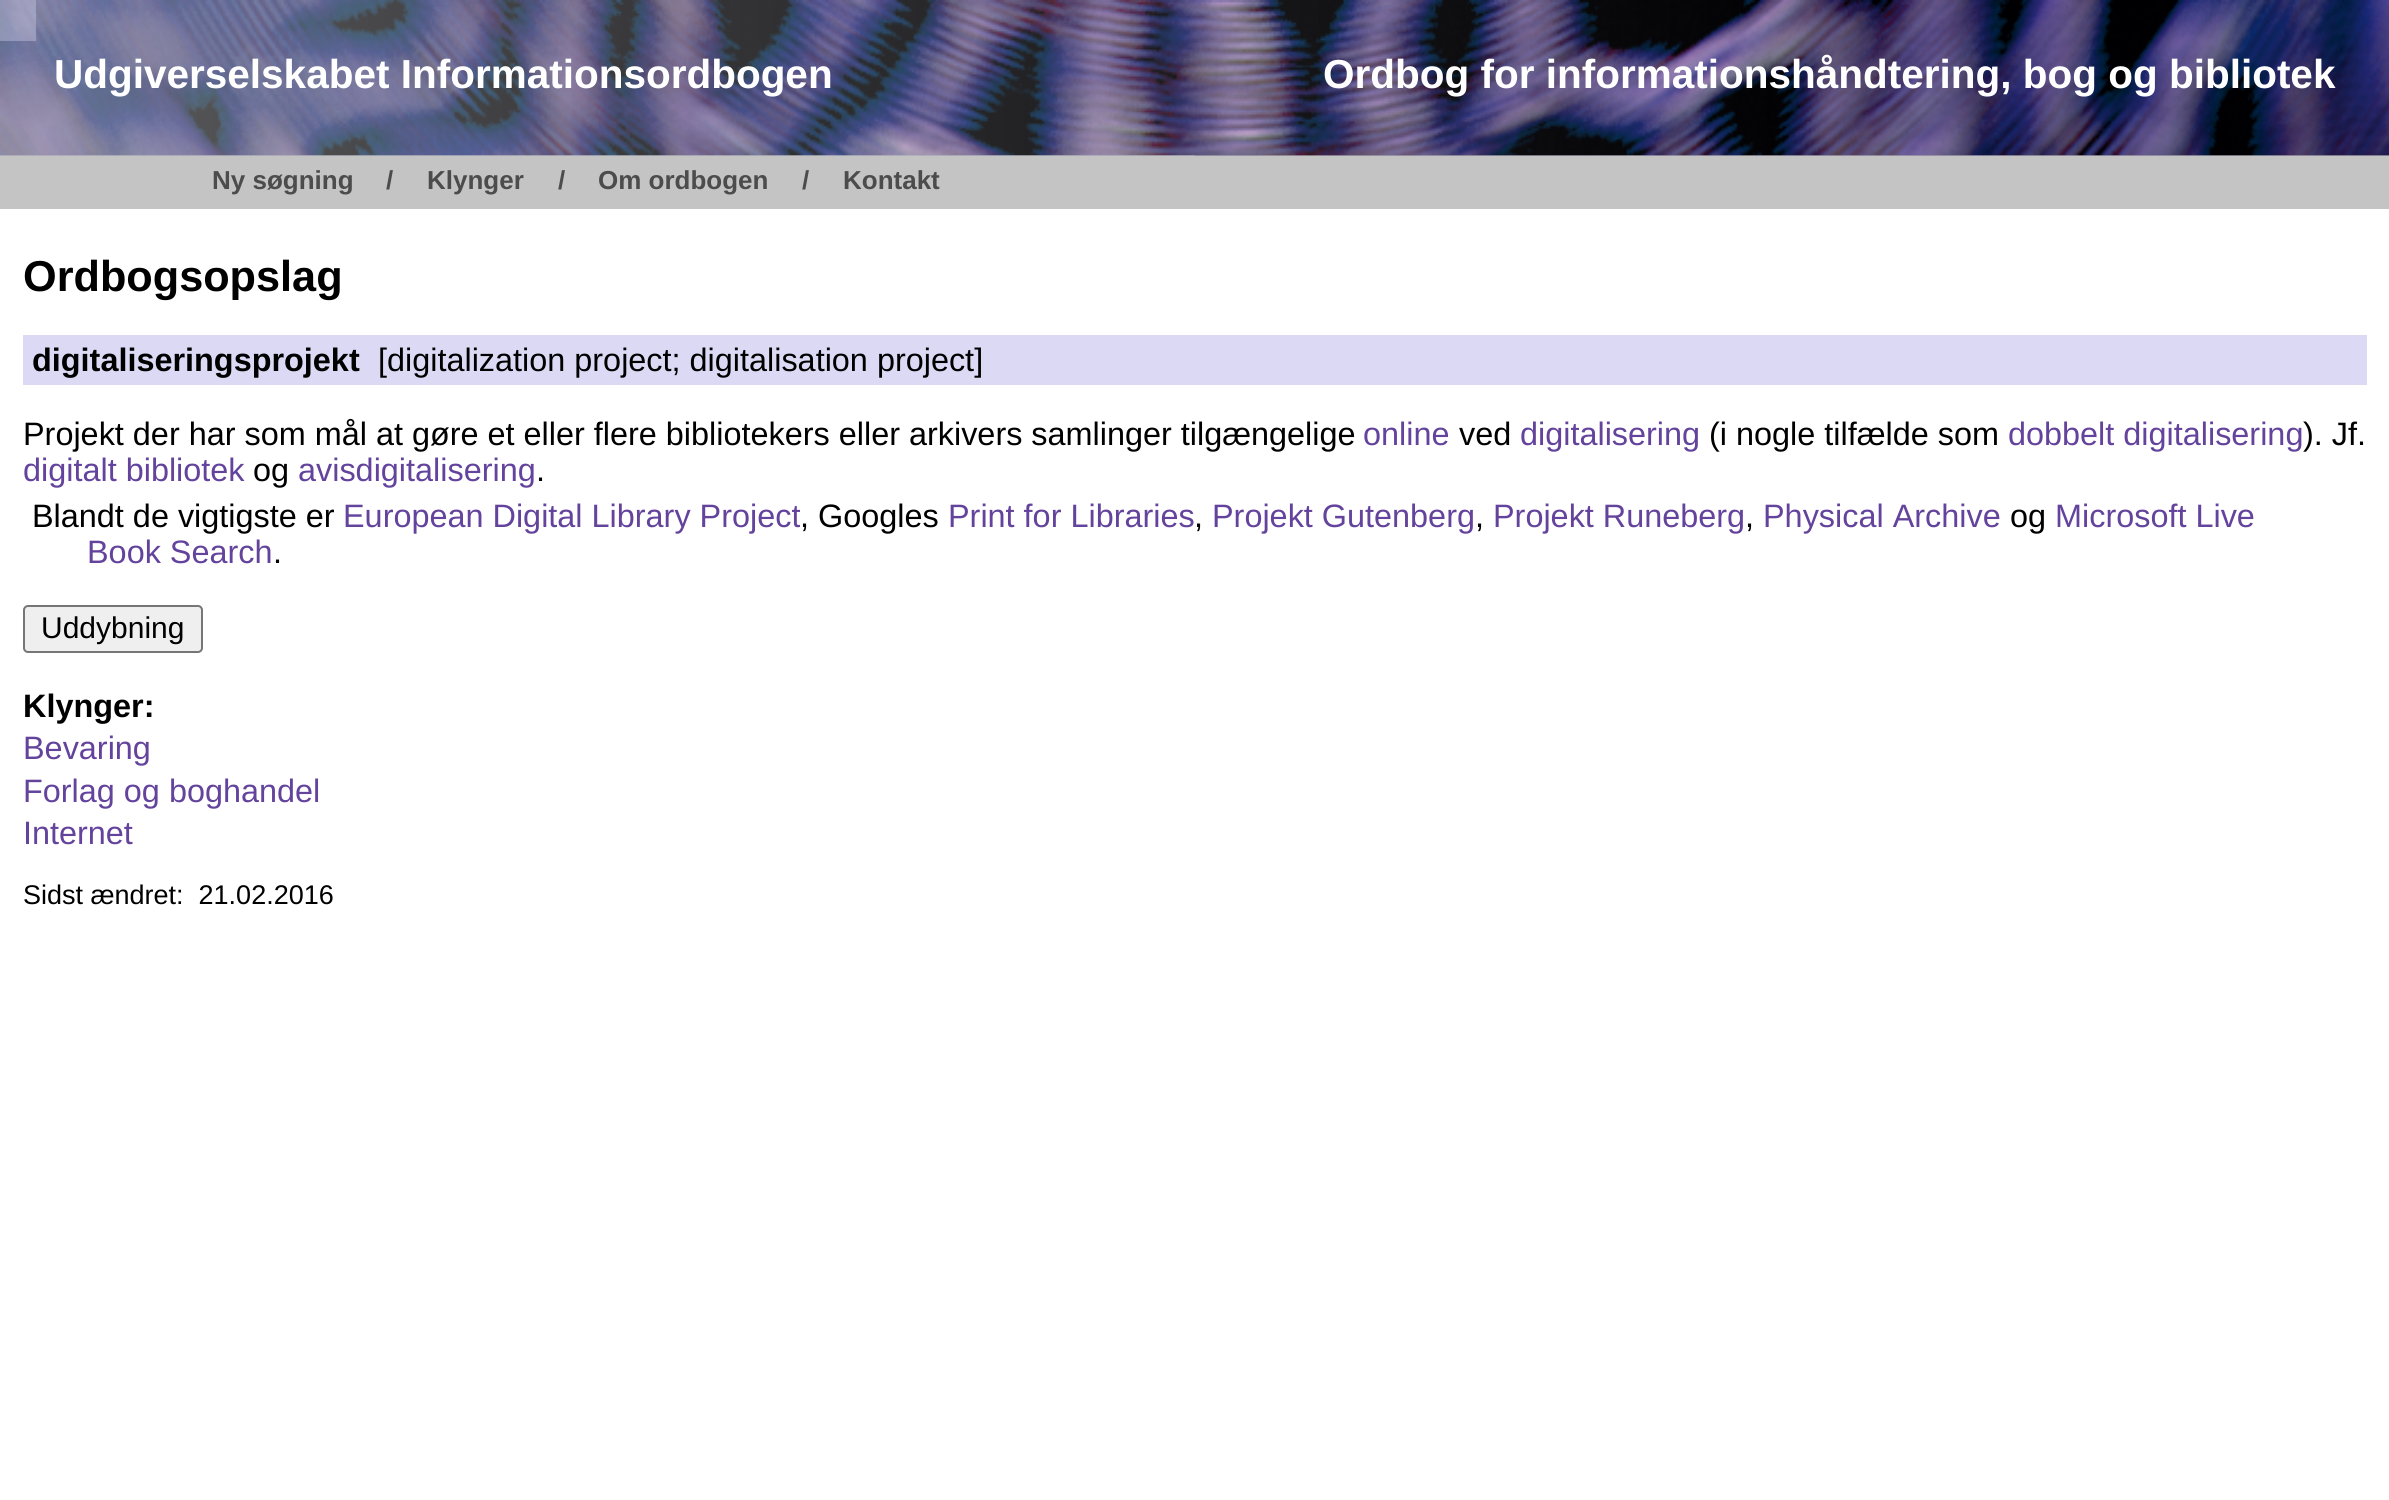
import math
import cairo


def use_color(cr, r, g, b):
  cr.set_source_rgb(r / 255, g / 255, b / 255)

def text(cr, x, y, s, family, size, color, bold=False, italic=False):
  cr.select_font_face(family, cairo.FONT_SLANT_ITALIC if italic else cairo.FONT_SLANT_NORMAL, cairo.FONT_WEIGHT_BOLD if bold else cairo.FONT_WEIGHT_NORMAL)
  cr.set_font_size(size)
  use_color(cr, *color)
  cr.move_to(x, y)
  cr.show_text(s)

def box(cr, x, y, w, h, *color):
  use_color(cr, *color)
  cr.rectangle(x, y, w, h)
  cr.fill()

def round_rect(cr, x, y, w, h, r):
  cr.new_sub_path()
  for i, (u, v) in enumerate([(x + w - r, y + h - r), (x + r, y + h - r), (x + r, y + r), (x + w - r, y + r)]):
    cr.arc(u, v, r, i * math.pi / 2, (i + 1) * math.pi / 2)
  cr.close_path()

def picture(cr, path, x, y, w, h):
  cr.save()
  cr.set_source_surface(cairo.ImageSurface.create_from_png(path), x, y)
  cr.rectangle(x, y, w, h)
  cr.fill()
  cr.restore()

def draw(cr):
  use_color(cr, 255, 255, 255)
  cr.paint()
  box(cr, 0, 155, 2389, 54, 196, 196, 196)
  picture(cr, "img_01.png", 0, 0, 2389, 156)
  cr.set_source_rgba(0.863, 0.851, 0.957, 0.35)
  cr.rectangle(0, 0, 36, 41)
  cr.fill()
  box(cr, 23, 335, 2344, 50, 220, 217, 244)
  use_color(cr, 239, 239, 239)
  round_rect(cr, 24, 606, 178, 46, 4)
  cr.fill_preserve()
  use_color(cr, 118, 118, 118)
  cr.stroke()
  text(cr, 54, 88, "Udgiverselskabet Informationsordbogen", "Liberation Sans", 40.5, (255, 255, 255), bold=True)
  text(cr, 1323, 88, "Ordbog for informationshåndtering, bog og bibliotek", "Liberation Sans", 40.5, (255, 255, 255), bold=True)
  text(cr, 212, 189, "Ny søgning", "Liberation Sans", 26, (76, 76, 76), bold=True)
  text(cr, 386, 189, "/", "Liberation Sans", 26, (76, 76, 76), bold=True)
  text(cr, 427, 189, "Klynger", "Liberation Sans", 26, (76, 76, 76), bold=True)
  text(cr, 558, 189, "/", "Liberation Sans", 26, (76, 76, 76), bold=True)
  text(cr, 598, 189, "Om ordbogen", "Liberation Sans", 26, (76, 76, 76), bold=True)
  text(cr, 802, 189, "/", "Liberation Sans", 26, (76, 76, 76), bold=True)
  text(cr, 843, 189, "Kontakt", "Liberation Sans", 26, (76, 76, 76), bold=True)
  text(cr, 23, 291, "Ordbogsopslag", "Liberation Sans", 43.25, (0, 0, 0), bold=True)
  text(cr, 32, 371, "digitaliseringsprojekt", "Liberation Sans", 32.4, (0, 0, 0), bold=True)
  text(cr, 378, 371, "[digitalization project; digitalisation project]", "Liberation Sans", 32.4, (0, 0, 0))
  text(cr, 23, 445, "Projekt der har som mål at gøre et eller flere bibliotekers eller arkivers samlinger tilgængelige", "Liberation Sans", 32.4, (0, 0, 0))
  text(cr, 1363, 445, "online", "Liberation Sans", 32.4, (99, 67, 156))
  text(cr, 1459, 445, "ved", "Liberation Sans", 32.4, (0, 0, 0))
  text(cr, 1520, 445, "digitalisering", "Liberation Sans", 32.4, (99, 67, 156))
  text(cr, 1709, 445, "(i nogle tilfælde som", "Liberation Sans", 32.4, (0, 0, 0))
  text(cr, 2008, 445, "dobbelt digitalisering", "Liberation Sans", 32.4, (99, 67, 156))
  text(cr, 2303, 445, "). Jf.", "Liberation Sans", 32.4, (0, 0, 0))
  text(cr, 23, 481, "digitalt bibliotek", "Liberation Sans", 32.4, (99, 67, 156))
  text(cr, 253, 481, "og", "Liberation Sans", 32.4, (0, 0, 0))
  text(cr, 298, 481, "avisdigitalisering", "Liberation Sans", 32.4, (99, 67, 156))
  text(cr, 536, 481, ".", "Liberation Sans", 32.4, (0, 0, 0))
  text(cr, 32, 527, "Blandt de vigtigste er", "Liberation Sans", 32.4, (0, 0, 0))
  text(cr, 343, 527, "European Digital Library Project", "Liberation Sans", 32.4, (99, 67, 156))
  text(cr, 800, 527, ", Googles", "Liberation Sans", 32.4, (0, 0, 0))
  text(cr, 948, 527, "Print for Libraries", "Liberation Sans", 32.4, (99, 67, 156))
  text(cr, 1194, 527, ",", "Liberation Sans", 32.4, (0, 0, 0))
  text(cr, 1212, 527, "Projekt Gutenberg", "Liberation Sans", 32.4, (99, 67, 156))
  text(cr, 1475, 527, ",", "Liberation Sans", 32.4, (0, 0, 0))
  text(cr, 1493, 527, "Projekt Runeberg", "Liberation Sans", 32.4, (99, 67, 156))
  text(cr, 1745, 527, ",", "Liberation Sans", 32.4, (0, 0, 0))
  text(cr, 1763, 527, "Physical Archive", "Liberation Sans", 32.4, (99, 67, 156))
  text(cr, 2010, 527, "og", "Liberation Sans", 32.4, (0, 0, 0))
  text(cr, 2055, 527, "Microsoft Live", "Liberation Sans", 32.4, (99, 67, 156))
  text(cr, 87, 563, "Book Search", "Liberation Sans", 32.4, (99, 67, 156))
  text(cr, 273, 563, ".", "Liberation Sans", 32.4, (0, 0, 0))
  text(cr, 41, 638, "Uddybning", "Liberation Sans", 30, (0, 0, 0))
  text(cr, 23, 717, "Klynger:", "Liberation Sans", 32.4, (0, 0, 0), bold=True)
  text(cr, 23, 759, "Bevaring", "Liberation Sans", 32.4, (99, 67, 156))
  text(cr, 23, 802, "Forlag og boghandel", "Liberation Sans", 32.4, (99, 67, 156))
  text(cr, 23, 844, "Internet", "Liberation Sans", 32.4, (99, 67, 156))
  text(cr, 23, 904, "Sidst ændret:  21.02.2016", "Liberation Sans", 27, (0, 0, 0))


surface = cairo.ImageSurface(cairo.FORMAT_RGB24, 2389, 1500)
cr = cairo.Context(surface)
options = cairo.FontOptions()
options.set_hint_metrics(cairo.HINT_METRICS_OFF)
options.set_hint_style(cairo.HINT_STYLE_NONE)
cr.set_font_options(options)
cr.set_miter_limit(4)
draw(cr)
surface.write_to_png("out.png")
